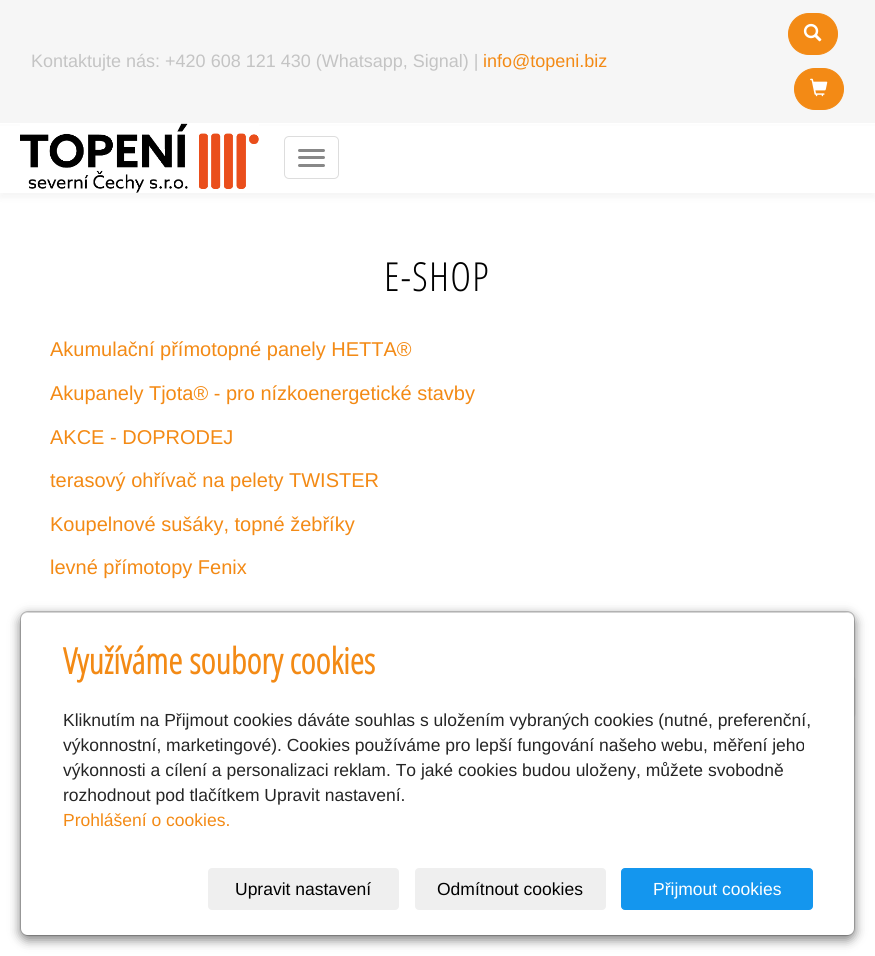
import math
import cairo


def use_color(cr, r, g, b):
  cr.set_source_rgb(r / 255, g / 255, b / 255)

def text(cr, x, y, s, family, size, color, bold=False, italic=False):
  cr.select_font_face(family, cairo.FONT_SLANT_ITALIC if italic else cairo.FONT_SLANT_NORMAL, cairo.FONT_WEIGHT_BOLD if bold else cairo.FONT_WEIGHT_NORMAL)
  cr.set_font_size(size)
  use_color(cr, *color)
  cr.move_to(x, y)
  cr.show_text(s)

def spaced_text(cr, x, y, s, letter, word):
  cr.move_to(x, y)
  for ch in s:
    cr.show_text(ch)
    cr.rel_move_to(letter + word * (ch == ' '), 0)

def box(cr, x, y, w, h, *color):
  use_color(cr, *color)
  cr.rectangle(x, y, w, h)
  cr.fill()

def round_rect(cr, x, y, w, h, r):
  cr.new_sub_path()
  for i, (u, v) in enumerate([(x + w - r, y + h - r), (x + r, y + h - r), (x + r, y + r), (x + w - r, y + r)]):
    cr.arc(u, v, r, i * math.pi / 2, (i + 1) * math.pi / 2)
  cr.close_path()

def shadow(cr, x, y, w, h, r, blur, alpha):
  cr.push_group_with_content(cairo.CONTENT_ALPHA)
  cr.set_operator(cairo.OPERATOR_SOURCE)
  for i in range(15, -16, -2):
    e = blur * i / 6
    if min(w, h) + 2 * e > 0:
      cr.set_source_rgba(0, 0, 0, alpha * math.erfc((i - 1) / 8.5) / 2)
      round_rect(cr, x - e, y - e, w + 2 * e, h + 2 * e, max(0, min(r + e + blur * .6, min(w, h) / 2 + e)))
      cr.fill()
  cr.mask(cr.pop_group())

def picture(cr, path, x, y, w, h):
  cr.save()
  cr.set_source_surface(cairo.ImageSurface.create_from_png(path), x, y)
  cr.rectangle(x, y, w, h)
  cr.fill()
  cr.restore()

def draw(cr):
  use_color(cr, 255, 255, 255)
  cr.paint()
  box(cr, 0, 0, 875, 123, 246, 246, 246)
  use_color(cr, 243, 138, 21)
  round_rect(cr, 788.5, 13.5, 49, 41, 20.5)
  cr.fill_preserve()
  cr.set_line_width(1)
  cr.stroke()
  picture(cr, "img_01.png", 803, 23, 19, 19)
  round_rect(cr, 794.5, 68.5, 49, 41, 20.5)
  cr.fill_preserve()
  cr.stroke()
  picture(cr, "img_02.png", 810, 78, 18, 19)
  use_color(cr, 50, 50, 50)
  shadow(cr, 0, 128, 875, 70, 0, 3, 0.05)
  box(cr, 0, 126, 875, 67, 255, 255, 255)
  picture(cr, "img_03.png", 20, 123, 239, 70)
  round_rect(cr, 284.5, 136.5, 54, 42, 4.5)
  use_color(cr, 221, 221, 221)
  cr.stroke()
  use_color(cr, 136, 136, 136)
  round_rect(cr, 298, 149, 27, 3, 1.5)
  cr.fill()
  round_rect(cr, 298, 156, 27, 3, 1.5)
  cr.fill()
  round_rect(cr, 298, 164, 27, 3, 1.5)
  cr.fill()
  use_color(cr, 246, 246, 246)
  round_rect(cr, 50, 676, 806, 42, 5)
  cr.fill()
  use_color(cr, 0, 0, 0)
  shadow(cr, 20, 615, 835, 325, 8, 5.5, 0.5)
  use_color(cr, 255, 255, 255)
  round_rect(cr, 21, 613, 833, 322, 6)
  cr.fill()
  round_rect(cr, 20.5, 611.5, 834, 324, 7.5)
  cr.set_source_rgba(0, 0, 0, 0.2)
  cr.stroke()
  use_color(cr, 239, 239, 239)
  round_rect(cr, 208, 868, 191, 42, 4)
  cr.fill()
  round_rect(cr, 415, 868, 191, 42, 4)
  cr.fill()
  use_color(cr, 20, 150, 238)
  round_rect(cr, 621.5, 868.5, 191, 41, 3.5)
  cr.fill_preserve()
  cr.stroke()
  text(cr, 31, 67, "Kontaktujte nás: +420 608 121 430 (Whatsapp, Signal) |", "Liberation Sans", 18, (196, 196, 196))
  text(cr, 483, 67, "info@topeni.biz", "Liberation Sans", 18, (243, 138, 21))
  cr.select_font_face("Open Sans Light")
  cr.set_font_size(40)
  use_color(cr, 0, 0, 0)
  spaced_text(cr, 384, 291, "E-SHOP", 1.25, 0)
  text(cr, 50, 356, "Akumulační přímotopné panely HETTA®", "Liberation Sans", 20, (243, 138, 21))
  text(cr, 50, 400, "Akupanely Tjota® - pro nízkoenergetické stavby", "Liberation Sans", 20, (243, 138, 21))
  text(cr, 50, 444, "AKCE - DOPRODEJ", "Liberation Sans", 20, (243, 138, 21))
  text(cr, 50, 487, "terasový ohřívač na pelety TWISTER", "Liberation Sans", 20, (243, 138, 21))
  text(cr, 50, 531, "Koupelnové sušáky, topné žebříky", "Liberation Sans", 20, (243, 138, 21))
  text(cr, 50, 574, "levné přímotopy Fenix", "Liberation Sans", 20, (243, 138, 21))
  text(cr, 63, 674, "Využíváme soubory cookies", "Open Sans", 36, (243, 138, 21), bold=True)
  text(cr, 63, 726, "Kliknutím na Přijmout cookies dáváte souhlas s uložením vybraných cookies (nutné, preferenční,", "Liberation Sans", 17.5, (37, 37, 37))
  text(cr, 63, 751, "výkonnostní, marketingové). Cookies používáme pro lepší fungování našeho webu, měření jeho", "Liberation Sans", 17.5, (37, 37, 37))
  text(cr, 63, 776, "výkonnosti a cílení a personalizaci reklam. To jaké cookies budou uloženy, můžete svobodně", "Liberation Sans", 17.5, (37, 37, 37))
  text(cr, 63, 801, "rozhodnout pod tlačítkem Upravit nastavení.", "Liberation Sans", 17.5, (37, 37, 37))
  text(cr, 63, 826, "Prohlášení o cookies.", "Liberation Sans", 17.5, (243, 138, 21))
  text(cr, 235, 895, "Upravit nastavení", "Liberation Sans", 17.5, (0, 0, 0))
  text(cr, 437, 895, "Odmítnout cookies", "Liberation Sans", 17.5, (0, 0, 0))
  text(cr, 653, 895, "Přijmout cookies", "Liberation Sans", 17.5, (255, 255, 255))


surface = cairo.ImageSurface(cairo.FORMAT_RGB24, 875, 956)
cr = cairo.Context(surface)
options = cairo.FontOptions()
options.set_hint_metrics(cairo.HINT_METRICS_OFF)
options.set_hint_style(cairo.HINT_STYLE_NONE)
cr.set_font_options(options)
cr.set_miter_limit(4)
draw(cr)
surface.write_to_png("out.png")
